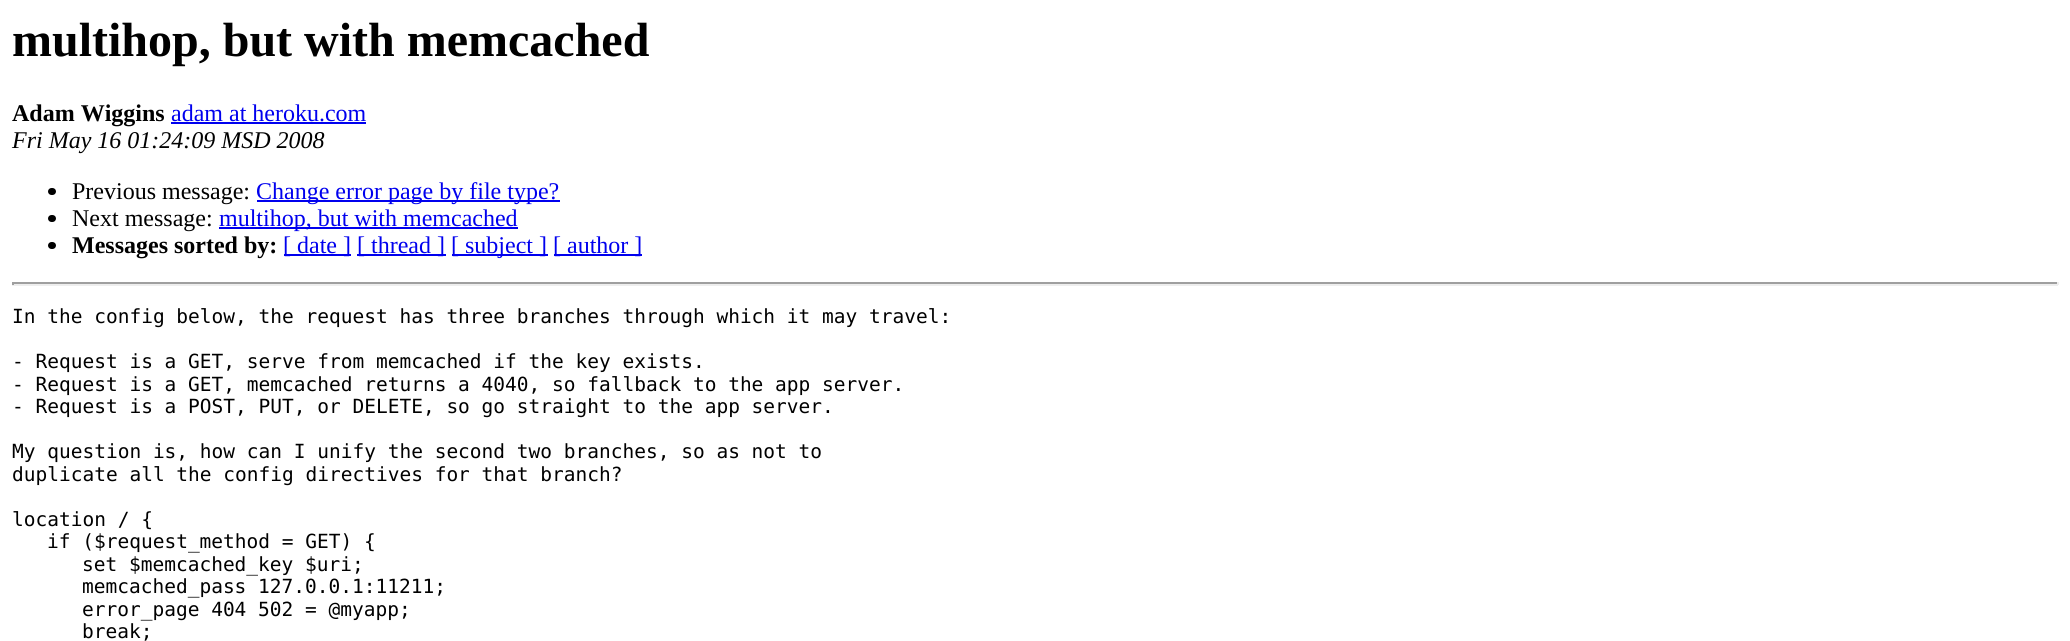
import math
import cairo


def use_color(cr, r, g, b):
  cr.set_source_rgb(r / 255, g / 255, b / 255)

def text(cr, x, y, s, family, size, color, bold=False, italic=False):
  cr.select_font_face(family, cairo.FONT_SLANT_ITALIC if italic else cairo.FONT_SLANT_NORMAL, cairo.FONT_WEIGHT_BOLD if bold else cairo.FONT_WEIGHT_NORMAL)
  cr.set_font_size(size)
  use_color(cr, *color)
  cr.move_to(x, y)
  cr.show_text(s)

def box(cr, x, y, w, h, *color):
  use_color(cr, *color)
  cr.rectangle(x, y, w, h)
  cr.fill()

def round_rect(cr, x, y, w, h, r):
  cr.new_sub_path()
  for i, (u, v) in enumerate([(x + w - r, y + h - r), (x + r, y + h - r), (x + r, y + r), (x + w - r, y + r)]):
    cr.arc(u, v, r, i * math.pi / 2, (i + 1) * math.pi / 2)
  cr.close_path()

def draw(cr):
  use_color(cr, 255, 255, 255)
  cr.paint()
  box(cr, 171, 122, 195, 2, 0, 0, 238)
  use_color(cr, 0, 0, 0)
  round_rect(cr, 48, 188, 8, 7, 3.5)
  cr.fill()
  box(cr, 257, 200, 303, 2, 0, 0, 238)
  use_color(cr, 0, 0, 0)
  round_rect(cr, 48, 215, 8, 7, 3.5)
  cr.fill()
  box(cr, 219, 227, 299, 2, 0, 0, 238)
  use_color(cr, 0, 0, 0)
  round_rect(cr, 48, 242, 8, 7, 3.5)
  cr.fill()
  box(cr, 284, 254, 67, 2, 0, 0, 238)
  box(cr, 357, 254, 89, 2, 0, 0, 238)
  box(cr, 452, 254, 96, 2, 0, 0, 238)
  box(cr, 554, 254, 88, 2, 0, 0, 238)
  box(cr, 12, 282, 2046, 2, 159, 159, 159)
  box(cr, 2057, 282, 2, 3, 238, 238, 238)
  box(cr, 12, 284, 2046, 2, 238, 238, 238)
  box(cr, 12, 282, 2, 3, 159, 159, 159)
  text(cr, 12, 56, "multihop, but with memcached", "Liberation Serif", 48, (0, 0, 0), bold=True)
  text(cr, 12, 121, "Adam Wiggins", "Liberation Serif", 24, (0, 0, 0), bold=True)
  text(cr, 171, 121, "adam at heroku.com", "Liberation Serif", 24, (0, 0, 238))
  text(cr, 12, 148, "Fri May 16 01:24:09 MSD 2008", "Liberation Serif", 24, (0, 0, 0), italic=True)
  text(cr, 72, 199, "Previous message:", "Liberation Serif", 24, (0, 0, 0))
  text(cr, 256, 199, "Change error page by file type?", "Liberation Serif", 24, (0, 0, 238))
  text(cr, 72, 226, "Next message:", "Liberation Serif", 24, (0, 0, 0))
  text(cr, 219, 226, "multihop, but with memcached", "Liberation Serif", 24, (0, 0, 238))
  text(cr, 72, 253, "Messages sorted by:", "Liberation Serif", 24, (0, 0, 0), bold=True)
  text(cr, 283, 253, "[ date ]", "Liberation Serif", 24, (0, 0, 238))
  text(cr, 357, 253, "[ thread ]", "Liberation Serif", 24, (0, 0, 238))
  text(cr, 451, 253, "[ subject ]", "Liberation Serif", 24, (0, 0, 238))
  text(cr, 553, 253, "[ author ]", "Liberation Serif", 24, (0, 0, 238))
  text(cr, 12, 323, "In the config below, the request has three branches through which it may travel:", "DejaVu Sans Mono", 19.5, (0, 0, 0))
  text(cr, 12, 368, "- Request is a GET, serve from memcached if the key exists.", "DejaVu Sans Mono", 19.5, (0, 0, 0))
  text(cr, 12, 391, "- Request is a GET, memcached returns a 4040, so fallback to the app server.", "DejaVu Sans Mono", 19.5, (0, 0, 0))
  text(cr, 12, 413, "- Request is a POST, PUT, or DELETE, so go straight to the app server.", "DejaVu Sans Mono", 19.5, (0, 0, 0))
  text(cr, 12, 458, "My question is, how can I unify the second two branches, so as not to", "DejaVu Sans Mono", 19.5, (0, 0, 0))
  text(cr, 12, 481, "duplicate all the config directives for that branch?", "DejaVu Sans Mono", 19.5, (0, 0, 0))
  text(cr, 12, 526, "location / {", "DejaVu Sans Mono", 19.5, (0, 0, 0))
  text(cr, 47, 548, "if ($request_method = GET) {", "DejaVu Sans Mono", 19.5, (0, 0, 0))
  text(cr, 82, 571, "set $memcached_key $uri;", "DejaVu Sans Mono", 19.5, (0, 0, 0))
  text(cr, 82, 593, "memcached_pass 127.0.0.1:11211;", "DejaVu Sans Mono", 19.5, (0, 0, 0))
  text(cr, 82, 616, "error_page 404 502 = @myapp;", "DejaVu Sans Mono", 19.5, (0, 0, 0))
  text(cr, 82, 638, "break;", "DejaVu Sans Mono", 19.5, (0, 0, 0))


surface = cairo.ImageSurface(cairo.FORMAT_RGB24, 2070, 641)
cr = cairo.Context(surface)
options = cairo.FontOptions()
options.set_hint_metrics(cairo.HINT_METRICS_OFF)
options.set_hint_style(cairo.HINT_STYLE_NONE)
cr.set_font_options(options)
cr.set_miter_limit(4)
draw(cr)
surface.write_to_png("out.png")
